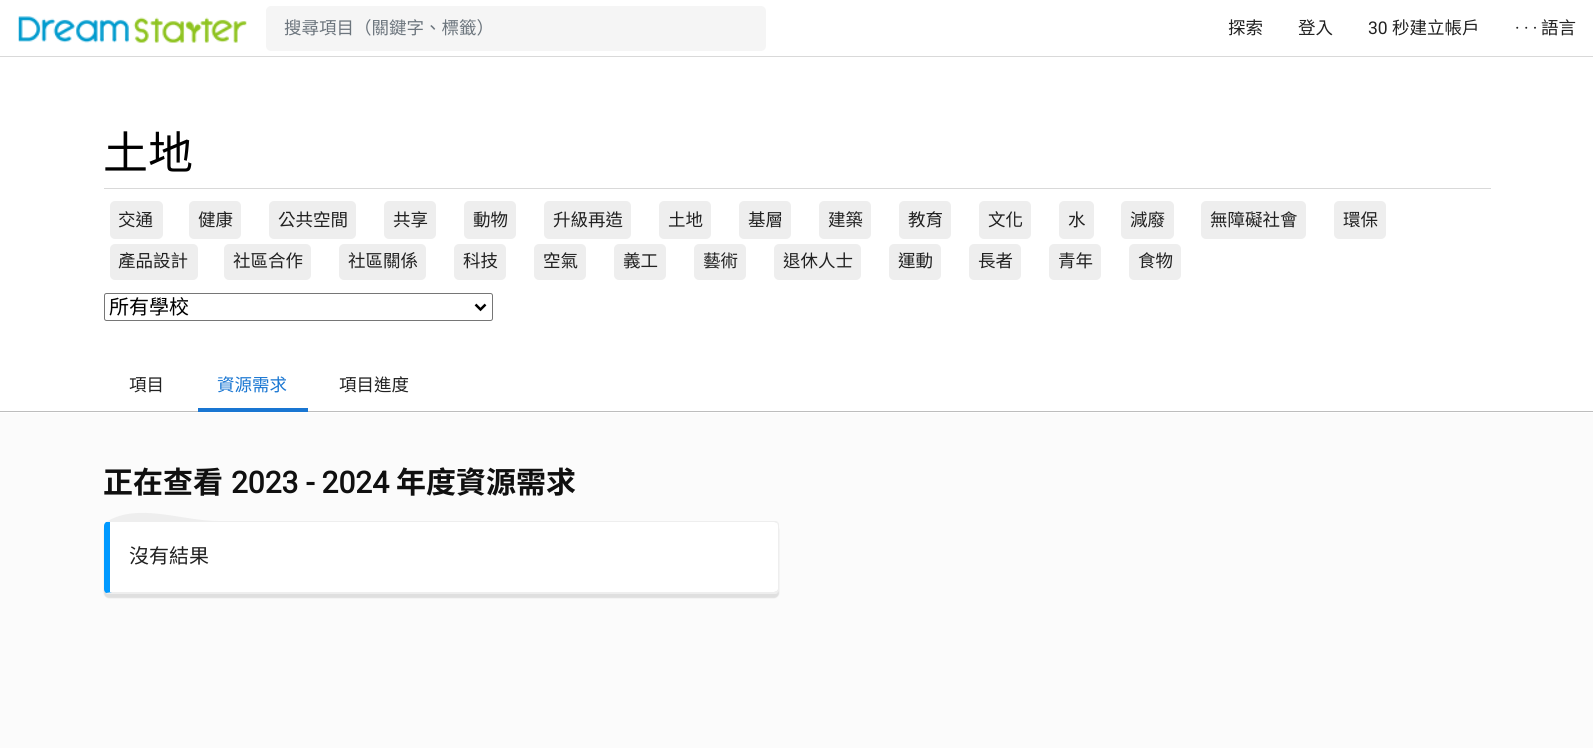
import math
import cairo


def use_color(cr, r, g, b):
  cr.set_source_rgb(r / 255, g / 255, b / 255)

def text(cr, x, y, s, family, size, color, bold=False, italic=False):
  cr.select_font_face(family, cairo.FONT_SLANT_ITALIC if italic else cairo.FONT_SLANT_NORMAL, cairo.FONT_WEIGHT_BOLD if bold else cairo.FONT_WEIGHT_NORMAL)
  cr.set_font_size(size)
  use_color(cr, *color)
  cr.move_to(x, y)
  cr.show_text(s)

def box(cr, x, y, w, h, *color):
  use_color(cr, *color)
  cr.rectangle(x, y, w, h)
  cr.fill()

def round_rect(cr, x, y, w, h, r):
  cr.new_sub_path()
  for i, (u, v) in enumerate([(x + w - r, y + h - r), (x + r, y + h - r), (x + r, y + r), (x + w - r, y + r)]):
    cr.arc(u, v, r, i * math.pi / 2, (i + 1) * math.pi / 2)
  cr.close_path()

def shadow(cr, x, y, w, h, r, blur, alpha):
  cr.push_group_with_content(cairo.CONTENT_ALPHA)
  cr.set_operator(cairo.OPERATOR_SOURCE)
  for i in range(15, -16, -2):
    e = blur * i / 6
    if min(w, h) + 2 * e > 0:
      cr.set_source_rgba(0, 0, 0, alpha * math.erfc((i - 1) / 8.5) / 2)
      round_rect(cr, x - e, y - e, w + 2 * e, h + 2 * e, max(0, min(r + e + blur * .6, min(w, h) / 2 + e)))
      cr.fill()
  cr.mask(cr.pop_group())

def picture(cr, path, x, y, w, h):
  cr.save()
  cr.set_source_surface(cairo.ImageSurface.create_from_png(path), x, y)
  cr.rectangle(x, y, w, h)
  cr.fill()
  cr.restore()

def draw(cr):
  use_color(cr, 251, 251, 251)
  cr.paint()
  box(cr, 0, 0, 1593, 413, 255, 255, 255)
  box(cr, 0, 56, 1593, 1, 217, 217, 217)
  picture(cr, "img_01.png", 18, 16, 229, 27)
  use_color(cr, 245, 245, 245)
  round_rect(cr, 266, 6, 500, 45, 5)
  cr.fill()
  box(cr, 104, 188, 1387, 1, 217, 217, 217)
  use_color(cr, 238, 238, 238)
  round_rect(cr, 110, 201, 53, 38, 5)
  cr.fill()
  round_rect(cr, 189, 201, 52, 38, 5)
  cr.fill()
  round_rect(cr, 269, 201, 87, 38, 5)
  cr.fill()
  round_rect(cr, 384, 201, 52, 38, 5)
  cr.fill()
  round_rect(cr, 464, 201, 52, 38, 5)
  cr.fill()
  round_rect(cr, 544, 201, 87, 38, 5)
  cr.fill()
  round_rect(cr, 659, 201, 52, 38, 5)
  cr.fill()
  round_rect(cr, 739, 201, 52, 38, 5)
  cr.fill()
  round_rect(cr, 819, 201, 52, 38, 5)
  cr.fill()
  round_rect(cr, 899, 201, 52, 38, 5)
  cr.fill()
  round_rect(cr, 979, 201, 52, 38, 5)
  cr.fill()
  round_rect(cr, 1059, 201, 35, 38, 5)
  cr.fill()
  round_rect(cr, 1121, 201, 53, 38, 5)
  cr.fill()
  round_rect(cr, 1201, 201, 105, 38, 5)
  cr.fill()
  round_rect(cr, 1334, 201, 52, 38, 5)
  cr.fill()
  round_rect(cr, 110, 244, 88, 36, 5)
  cr.fill()
  round_rect(cr, 224, 244, 87, 36, 5)
  cr.fill()
  round_rect(cr, 339, 244, 87, 36, 5)
  cr.fill()
  round_rect(cr, 454, 244, 52, 36, 5)
  cr.fill()
  round_rect(cr, 534, 244, 52, 36, 5)
  cr.fill()
  round_rect(cr, 614, 244, 52, 36, 5)
  cr.fill()
  round_rect(cr, 694, 244, 52, 36, 5)
  cr.fill()
  round_rect(cr, 774, 244, 87, 36, 5)
  cr.fill()
  round_rect(cr, 889, 244, 52, 36, 5)
  cr.fill()
  round_rect(cr, 969, 244, 52, 36, 5)
  cr.fill()
  round_rect(cr, 1049, 244, 52, 36, 5)
  cr.fill()
  round_rect(cr, 1129, 244, 52, 36, 5)
  cr.fill()
  round_rect(cr, 104.5, 293.5, 388, 27, 2)
  use_color(cr, 118, 118, 118)
  cr.set_line_width(1)
  cr.stroke()
  cr.new_path()
  cr.move_to(475.5, 304.5)
  cr.line_to(480.5, 309.5)
  cr.line_to(485.5, 304.5)
  use_color(cr, 0, 0, 0)
  cr.set_line_width(2.5)
  cr.stroke()
  box(cr, 0, 411, 1593, 1, 189, 189, 189)
  box(cr, 198, 408, 110, 4, 25, 118, 210)
  use_color(cr, 180, 180, 180)
  shadow(cr, 104, 525, 675, 73, 5, 0.5, 0.4)
  use_color(cr, 255, 255, 255)
  cr.new_path()
  cr.move_to(110, 522)
  cr.line_to(774, 522)
  cr.curve_to(776, 522, 778, 524, 778, 526)
  cr.line_to(778, 589)
  cr.curve_to(778, 591, 776, 592, 774, 592)
  cr.line_to(110, 592)
  cr.close_path()
  cr.fill()
  use_color(cr, 238, 238, 238)
  cr.new_path()
  cr.move_to(110, 522)
  cr.line_to(106, 522)
  cr.curve_to(138, 502, 181, 521, 219, 521)
  cr.line_to(776, 521)
  cr.line_to(778, 522)
  cr.line_to(777, 523)
  cr.line_to(774, 522)
  cr.close_path()
  cr.fill()
  cr.new_path()
  cr.move_to(779, 591)
  cr.line_to(778, 593)
  cr.line_to(776, 591)
  cr.curve_to(777, 591, 778, 590, 778, 589)
  cr.line_to(778, 526)
  cr.curve_to(778, 525, 778, 524, 777, 523)
  cr.line_to(778, 522)
  cr.line_to(779, 524)
  cr.close_path()
  cr.fill()
  cr.new_path()
  cr.move_to(107, 594)
  cr.line_to(106, 593)
  cr.line_to(112, 592)
  cr.line_to(774, 592)
  cr.line_to(776, 591)
  cr.line_to(778, 593)
  cr.line_to(776, 594)
  cr.close_path()
  cr.fill()
  use_color(cr, 0, 153, 255)
  cr.new_path()
  cr.move_to(106, 593)
  cr.curve_to(105, 592, 104, 591, 104, 589)
  cr.line_to(104, 526)
  cr.curve_to(104, 524, 105, 523, 106, 522)
  cr.line_to(110, 522)
  cr.line_to(110, 592)
  cr.line_to(112, 592)
  cr.close_path()
  cr.fill()
  text(cr, 284, 34, "搜尋項目（關鍵字、標籤）", "Noto Sans CJK TC", 17.5, (108, 117, 125))
  text(cr, 1228, 34, "探索", "Noto Sans CJK TC", 17.5, (33, 33, 33))
  text(cr, 1298, 34, "登入", "Noto Sans CJK TC", 17.5, (33, 33, 33))
  text(cr, 1368, 34, "30", "Roboto", 17.5, (33, 33, 33))
  text(cr, 1392, 34, "秒建立帳戶", "Noto Sans CJK TC", 17.5, (33, 33, 33))
  text(cr, 1515, 34, "· · ·", "Roboto", 17.5, (33, 33, 33))
  text(cr, 1541, 34, "語言", "Noto Sans CJK TC", 17.5, (33, 33, 33))
  text(cr, 103, 169, "土地", "Noto Sans CJK TC", 45, (0, 0, 0))
  text(cr, 118, 226, "交通", "Noto Sans CJK TC", 17.5, (33, 33, 33))
  text(cr, 198, 226, "健康", "Noto Sans CJK TC", 17.5, (33, 33, 33))
  text(cr, 278, 226, "公共空間", "Noto Sans CJK TC", 17.5, (33, 33, 33))
  text(cr, 393, 226, "共享", "Noto Sans CJK TC", 17.5, (33, 33, 33))
  text(cr, 473, 226, "動物", "Noto Sans CJK TC", 17.5, (33, 33, 33))
  text(cr, 553, 226, "升級再造", "Noto Sans CJK TC", 17.5, (33, 33, 33))
  text(cr, 668, 226, "土地", "Noto Sans CJK TC", 17.5, (33, 33, 33))
  text(cr, 748, 226, "基層", "Noto Sans CJK TC", 17.5, (33, 33, 33))
  text(cr, 828, 226, "建築", "Noto Sans CJK TC", 17.5, (33, 33, 33))
  text(cr, 908, 226, "教育", "Noto Sans CJK TC", 17.5, (33, 33, 33))
  text(cr, 988, 226, "文化", "Noto Sans CJK TC", 17.5, (33, 33, 33))
  text(cr, 1068, 226, "水", "Noto Sans CJK TC", 17.5, (33, 33, 33))
  text(cr, 1130, 226, "減廢", "Noto Sans CJK TC", 17.5, (33, 33, 33))
  text(cr, 1210, 226, "無障礙社會", "Noto Sans CJK TC", 17.5, (33, 33, 33))
  text(cr, 1343, 226, "環保", "Noto Sans CJK TC", 17.5, (33, 33, 33))
  text(cr, 118, 267, "產品設計", "Noto Sans CJK TC", 17.5, (33, 33, 33))
  text(cr, 233, 267, "社區合作", "Noto Sans CJK TC", 17.5, (33, 33, 33))
  text(cr, 348, 267, "社區關係", "Noto Sans CJK TC", 17.5, (33, 33, 33))
  text(cr, 463, 267, "科技", "Noto Sans CJK TC", 17.5, (33, 33, 33))
  text(cr, 543, 267, "空氣", "Noto Sans CJK TC", 17.5, (33, 33, 33))
  text(cr, 623, 267, "義工", "Noto Sans CJK TC", 17.5, (33, 33, 33))
  text(cr, 703, 267, "藝術", "Noto Sans CJK TC", 17.5, (33, 33, 33))
  text(cr, 783, 267, "退休人士", "Noto Sans CJK TC", 17.5, (33, 33, 33))
  text(cr, 898, 267, "運動", "Noto Sans CJK TC", 17.5, (33, 33, 33))
  text(cr, 978, 267, "長者", "Noto Sans CJK TC", 17.5, (33, 33, 33))
  text(cr, 1058, 267, "青年", "Noto Sans CJK TC", 17.5, (33, 33, 33))
  text(cr, 1138, 267, "食物", "Noto Sans CJK TC", 17.5, (33, 33, 33))
  text(cr, 109, 314, "所有學校", "Noto Sans CJK TC", 20, (0, 0, 0))
  text(cr, 129, 391, "項目", "Noto Sans CJK TC", 17.5, (33, 33, 33))
  text(cr, 217, 391, "資源需求", "Noto Sans CJK TC", 17.5, (25, 118, 210))
  text(cr, 339, 391, "項目進度", "Noto Sans CJK TC", 17.5, (33, 33, 33))
  text(cr, 103, 493, "正在查看", "Noto Sans CJK TC", 30, (16, 16, 16), bold=True)
  text(cr, 231, 493, "2023 - 2024", "Roboto", 30, (16, 16, 16), bold=True)
  text(cr, 396, 493, "年度資源需求", "Noto Sans CJK TC", 30, (16, 16, 16), bold=True)
  text(cr, 129, 563, "沒有結果", "Noto Sans CJK TC", 20, (33, 33, 33))


surface = cairo.ImageSurface(cairo.FORMAT_RGB24, 1593, 748)
cr = cairo.Context(surface)
options = cairo.FontOptions()
options.set_hint_metrics(cairo.HINT_METRICS_OFF)
options.set_hint_style(cairo.HINT_STYLE_NONE)
cr.set_font_options(options)
cr.set_miter_limit(4)
draw(cr)
surface.write_to_png("out.png")
